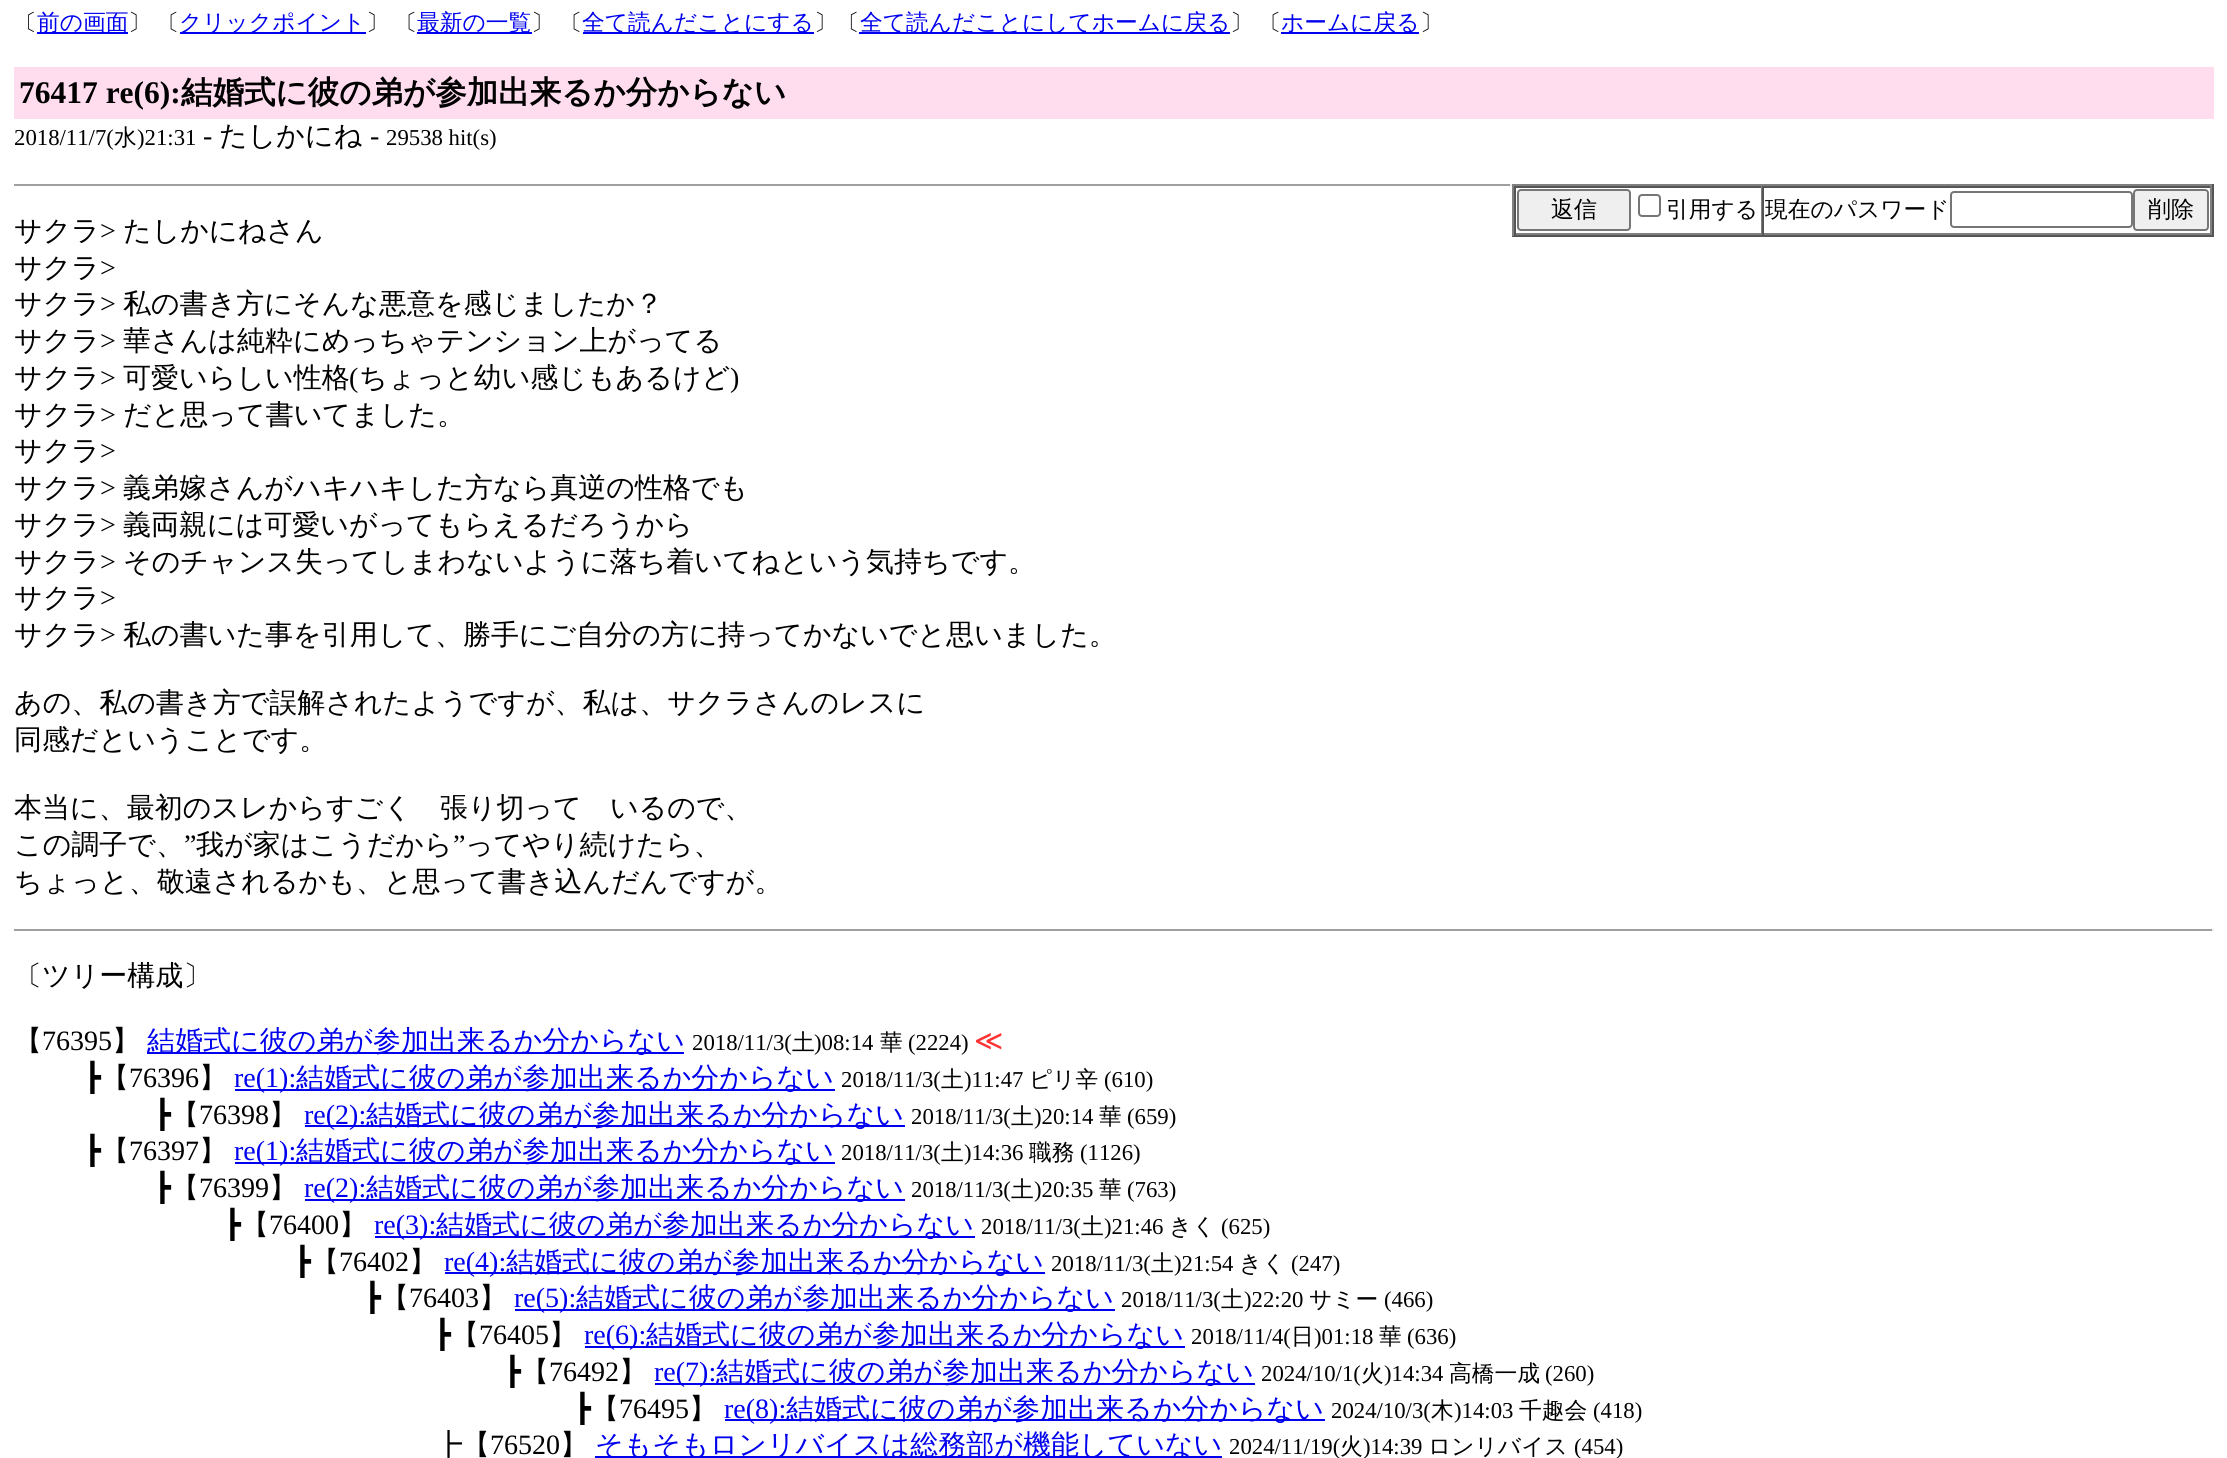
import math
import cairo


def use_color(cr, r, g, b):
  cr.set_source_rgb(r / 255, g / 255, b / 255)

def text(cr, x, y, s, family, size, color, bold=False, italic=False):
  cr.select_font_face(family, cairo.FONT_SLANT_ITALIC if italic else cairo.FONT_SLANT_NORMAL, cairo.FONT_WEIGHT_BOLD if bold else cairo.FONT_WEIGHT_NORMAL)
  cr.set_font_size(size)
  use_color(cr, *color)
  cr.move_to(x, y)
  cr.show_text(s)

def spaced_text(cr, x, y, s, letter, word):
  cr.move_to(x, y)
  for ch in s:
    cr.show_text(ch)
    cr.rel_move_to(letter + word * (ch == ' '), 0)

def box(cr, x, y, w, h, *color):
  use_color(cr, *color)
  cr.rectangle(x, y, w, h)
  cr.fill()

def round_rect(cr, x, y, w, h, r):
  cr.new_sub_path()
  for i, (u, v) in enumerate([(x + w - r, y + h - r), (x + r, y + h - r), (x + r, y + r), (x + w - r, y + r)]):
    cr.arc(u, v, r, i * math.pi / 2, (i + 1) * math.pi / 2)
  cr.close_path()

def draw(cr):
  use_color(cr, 255, 255, 255)
  cr.paint()
  box(cr, 37, 32, 91, 2, 0, 0, 238)
  box(cr, 180, 32, 186, 2, 0, 0, 238)
  box(cr, 417, 32, 115, 2, 0, 0, 238)
  box(cr, 583, 32, 231, 2, 0, 0, 238)
  box(cr, 859, 32, 371, 2, 0, 0, 238)
  box(cr, 1281, 32, 138, 2, 0, 0, 238)
  box(cr, 14, 67, 2200, 52, 255, 221, 238)
  box(cr, 14, 184, 1498, 2, 159, 159, 159)
  box(cr, 1510, 184, 2, 2, 238, 238, 238)
  box(cr, 1512, 184, 702, 2, 128, 128, 128)
  box(cr, 2212, 184, 2, 52, 85, 85, 85)
  box(cr, 1512, 235, 702, 2, 85, 85, 85)
  box(cr, 1512, 184, 2, 52, 128, 128, 128)
  box(cr, 1514, 186, 698, 2, 85, 85, 85)
  box(cr, 1761, 186, 1, 49, 128, 128, 128)
  box(cr, 1514, 233, 248, 2, 128, 128, 128)
  box(cr, 1514, 186, 2, 49, 85, 85, 85)
  use_color(cr, 239, 239, 239)
  round_rect(cr, 1518, 190, 112, 40, 3)
  cr.fill_preserve()
  use_color(cr, 118, 118, 118)
  cr.stroke()
  round_rect(cr, 1639, 195, 21, 21, 3)
  cr.stroke()
  box(cr, 2210, 186, 2, 49, 128, 128, 128)
  box(cr, 1762, 233, 450, 2, 128, 128, 128)
  box(cr, 1762, 186, 2, 49, 85, 85, 85)
  round_rect(cr, 1951, 192, 181, 35, 3)
  use_color(cr, 118, 118, 118)
  cr.stroke()
  use_color(cr, 239, 239, 239)
  round_rect(cr, 2134, 190, 74, 40, 3)
  cr.fill_preserve()
  use_color(cr, 118, 118, 118)
  cr.stroke()
  box(cr, 14, 929, 2200, 2, 159, 159, 159)
  box(cr, 2212, 929, 2, 2, 238, 238, 238)
  box(cr, 147, 1052, 537, 2, 0, 0, 238)
  box(cr, 235, 1089, 600, 2, 0, 0, 238)
  box(cr, 305, 1125, 600, 2, 0, 0, 238)
  box(cr, 235, 1162, 600, 2, 0, 0, 238)
  box(cr, 305, 1199, 600, 2, 0, 0, 238)
  box(cr, 375, 1236, 600, 2, 0, 0, 238)
  box(cr, 445, 1272, 600, 2, 0, 0, 238)
  box(cr, 515, 1309, 600, 2, 0, 0, 238)
  box(cr, 585, 1346, 600, 2, 0, 0, 238)
  box(cr, 655, 1383, 600, 2, 0, 0, 238)
  box(cr, 725, 1419, 600, 2, 0, 0, 238)
  box(cr, 595, 1456, 627, 2, 0, 0, 238)
  text(cr, 14, 30, "〔", "WenQuanYi Zen Hei Medium", 22.75, (0, 0, 0))
  text(cr, 37, 30, "前の画面", "WenQuanYi Zen Hei Medium", 22.75, (0, 0, 238))
  use_color(cr, 0, 0, 0)
  spaced_text(cr, 128, 30, "〕 〔", 0, -1)
  text(cr, 179, 30, "クリックポイント", "WenQuanYi Zen Hei Medium", 22.75, (0, 0, 238))
  use_color(cr, 0, 0, 0)
  spaced_text(cr, 366, 30, "〕 〔", 0, -1)
  text(cr, 417, 30, "最新の一覧", "WenQuanYi Zen Hei Medium", 22.75, (0, 0, 238))
  use_color(cr, 0, 0, 0)
  spaced_text(cr, 531, 30, "〕 〔", 0, -1)
  text(cr, 582, 30, "全て読んだことにする", "WenQuanYi Zen Hei Medium", 22.75, (0, 0, 238))
  text(cr, 814, 30, "〕〔", "WenQuanYi Zen Hei Medium", 22.75, (0, 0, 0))
  text(cr, 860, 30, "全て読んだことにしてホームに戻る", "WenQuanYi Zen Hei Medium", 22.75, (0, 0, 238))
  use_color(cr, 0, 0, 0)
  spaced_text(cr, 1230, 30, "〕 〔", 0, -1)
  text(cr, 1281, 30, "ホームに戻る", "WenQuanYi Zen Hei Medium", 22.75, (0, 0, 238))
  text(cr, 1420, 30, "〕", "WenQuanYi Zen Hei Medium", 22.75, (0, 0, 0))
  text(cr, 19, 103, "76417 re(6):", "Liberation Serif", 31.5, (0, 0, 0), bold=True)
  text(cr, 181, 103, "結婚式に彼の弟が参加出来るか分からない", "WenQuanYi Zen Hei", 31.5, (0, 0, 0), bold=True)
  text(cr, 14, 145, "2018/11/7(", "Liberation Serif", 22.75, (0, 0, 0))
  text(cr, 114, 145, "水", "WenQuanYi Zen Hei Medium", 22.75, (0, 0, 0))
  text(cr, 137, 145, ")21:31", "Liberation Serif", 22.75, (0, 0, 0))
  text(cr, 203, 145, "-", "Liberation Serif", 28, (0, 0, 0))
  text(cr, 219, 145, "たしかにね", "WenQuanYi Zen Hei Medium", 28, (0, 0, 0))
  text(cr, 370, 145, "-", "Liberation Serif", 28, (0, 0, 0))
  text(cr, 386, 145, "29538 hit(s)", "Liberation Serif", 22.75, (0, 0, 0))
  text(cr, 1551, 217, "返信", "WenQuanYi Zen Hei Medium", 23, (0, 0, 0))
  text(cr, 1666, 217, "引用する 現在のパスワード", "WenQuanYi Zen Hei Medium", 22.75, (0, 0, 0))
  text(cr, 2148, 217, "削除", "WenQuanYi Zen Hei Medium", 23, (0, 0, 0))
  text(cr, 14, 240, "サクラ", "WenQuanYi Zen Hei Medium", 28, (0, 0, 0))
  text(cr, 100, 240, ">", "Liberation Serif", 28, (0, 0, 0))
  text(cr, 123, 240, "たしかにねさん", "WenQuanYi Zen Hei Medium", 28, (0, 0, 0))
  text(cr, 14, 277, "サクラ", "WenQuanYi Zen Hei Medium", 28, (0, 0, 0))
  text(cr, 100, 277, ">", "Liberation Serif", 28, (0, 0, 0))
  text(cr, 14, 313, "サクラ", "WenQuanYi Zen Hei Medium", 28, (0, 0, 0))
  text(cr, 100, 313, ">", "Liberation Serif", 28, (0, 0, 0))
  text(cr, 123, 313, "私の書き方にそんな悪意を感じましたか？", "WenQuanYi Zen Hei Medium", 28, (0, 0, 0))
  text(cr, 14, 350, "サクラ", "WenQuanYi Zen Hei Medium", 28, (0, 0, 0))
  text(cr, 100, 350, ">", "Liberation Serif", 28, (0, 0, 0))
  text(cr, 123, 350, "華さんは純粋にめっちゃテンション上がってる", "WenQuanYi Zen Hei Medium", 28, (0, 0, 0))
  text(cr, 14, 387, "サクラ", "WenQuanYi Zen Hei Medium", 28, (0, 0, 0))
  text(cr, 100, 387, ">", "Liberation Serif", 28, (0, 0, 0))
  text(cr, 123, 387, "可愛いらしい性格", "WenQuanYi Zen Hei Medium", 28, (0, 0, 0))
  text(cr, 349, 387, "(", "Liberation Serif", 28, (0, 0, 0))
  text(cr, 359, 387, "ちょっと幼い感じもあるけど", "WenQuanYi Zen Hei Medium", 28, (0, 0, 0))
  text(cr, 730, 387, ")", "Liberation Serif", 28, (0, 0, 0))
  text(cr, 14, 424, "サクラ", "WenQuanYi Zen Hei Medium", 28, (0, 0, 0))
  text(cr, 100, 424, ">", "Liberation Serif", 28, (0, 0, 0))
  text(cr, 123, 424, "だと思って書いてました。", "WenQuanYi Zen Hei Medium", 28, (0, 0, 0))
  text(cr, 14, 460, "サクラ", "WenQuanYi Zen Hei Medium", 28, (0, 0, 0))
  text(cr, 100, 460, ">", "Liberation Serif", 28, (0, 0, 0))
  text(cr, 14, 497, "サクラ", "WenQuanYi Zen Hei Medium", 28, (0, 0, 0))
  text(cr, 100, 497, ">", "Liberation Serif", 28, (0, 0, 0))
  text(cr, 123, 497, "義弟嫁さんがハキハキした方なら真逆の性格でも", "WenQuanYi Zen Hei Medium", 28, (0, 0, 0))
  text(cr, 14, 534, "サクラ", "WenQuanYi Zen Hei Medium", 28, (0, 0, 0))
  text(cr, 100, 534, ">", "Liberation Serif", 28, (0, 0, 0))
  text(cr, 123, 534, "義両親には可愛いがってもらえるだろうから", "WenQuanYi Zen Hei Medium", 28, (0, 0, 0))
  text(cr, 14, 571, "サクラ", "WenQuanYi Zen Hei Medium", 28, (0, 0, 0))
  text(cr, 100, 571, ">", "Liberation Serif", 28, (0, 0, 0))
  text(cr, 123, 571, "そのチャンス失ってしまわないように落ち着いてねという気持ちです。", "WenQuanYi Zen Hei Medium", 28, (0, 0, 0))
  text(cr, 14, 607, "サクラ", "WenQuanYi Zen Hei Medium", 28, (0, 0, 0))
  text(cr, 100, 607, ">", "Liberation Serif", 28, (0, 0, 0))
  text(cr, 14, 644, "サクラ", "WenQuanYi Zen Hei Medium", 28, (0, 0, 0))
  text(cr, 100, 644, ">", "Liberation Serif", 28, (0, 0, 0))
  text(cr, 123, 644, "私の書いた事を引用して、勝手にご自分の方に持ってかないでと思いました。", "WenQuanYi Zen Hei Medium", 28, (0, 0, 0))
  text(cr, 14, 712, "あの、私の書き方で誤解されたようですが、私は、サクラさんのレスに", "WenQuanYi Zen Hei Medium", 28, (0, 0, 0))
  text(cr, 14, 749, "同感だということです。", "WenQuanYi Zen Hei Medium", 28, (0, 0, 0))
  text(cr, 14, 817, "本当に、最初のスレからすごく　張り切って　いるので、", "WenQuanYi Zen Hei Medium", 28, (0, 0, 0))
  text(cr, 14, 854, "この調子で、", "WenQuanYi Zen Hei Medium", 28, (0, 0, 0))
  text(cr, 184, 854, "”", "Liberation Serif", 28, (0, 0, 0))
  text(cr, 196, 854, "我が家はこうだから", "WenQuanYi Zen Hei Medium", 28, (0, 0, 0))
  text(cr, 453, 854, "”", "Liberation Serif", 28, (0, 0, 0))
  text(cr, 465, 854, "ってやり続けたら、", "WenQuanYi Zen Hei Medium", 28, (0, 0, 0))
  text(cr, 14, 891, "ちょっと、敬遠されるかも、と思って書き込んだんですが。", "WenQuanYi Zen Hei Medium", 28, (0, 0, 0))
  text(cr, 14, 985, "〔ツリー構成〕", "WenQuanYi Zen Hei Medium", 28, (0, 0, 0))
  text(cr, 14, 1050, "【", "WenQuanYi Zen Hei Medium", 28, (0, 0, 0))
  text(cr, 42, 1050, "76395", "Liberation Serif", 28, (0, 0, 0))
  text(cr, 112, 1050, "】", "WenQuanYi Zen Hei Medium", 28, (0, 0, 0))
  text(cr, 147, 1050, "結婚式に彼の弟が参加出来るか分からない", "WenQuanYi Zen Hei Medium", 28, (0, 0, 238))
  text(cr, 692, 1050, "2018/11/3(", "Liberation Serif", 22.75, (0, 0, 0))
  text(cr, 792, 1050, "土", "WenQuanYi Zen Hei Medium", 22.75, (0, 0, 0))
  text(cr, 814, 1050, ")08:14", "Liberation Serif", 22.75, (0, 0, 0))
  text(cr, 880, 1050, "華", "WenQuanYi Zen Hei Medium", 22.75, (0, 0, 0))
  text(cr, 908, 1050, "(2224)", "Liberation Serif", 22.75, (0, 0, 0))
  text(cr, 974, 1050, "≪", "DejaVu Sans", 28, (255, 51, 51))
  text(cr, 84, 1087, "┣", "DejaVu Sans", 28, (0, 0, 0))
  text(cr, 101, 1087, "【", "WenQuanYi Zen Hei Medium", 28, (0, 0, 0))
  text(cr, 129, 1087, "76396", "Liberation Serif", 28, (0, 0, 0))
  text(cr, 199, 1087, "】", "WenQuanYi Zen Hei Medium", 28, (0, 0, 0))
  text(cr, 234, 1087, "re(1):", "Liberation Serif", 28, (0, 0, 238))
  text(cr, 296, 1087, "結婚式に彼の弟が参加出来るか分からない", "WenQuanYi Zen Hei Medium", 28, (0, 0, 238))
  text(cr, 841, 1087, "2018/11/3(", "Liberation Serif", 22.75, (0, 0, 0))
  text(cr, 941, 1087, "土", "WenQuanYi Zen Hei Medium", 22.75, (0, 0, 0))
  text(cr, 964, 1087, ")11:47", "Liberation Serif", 22.75, (0, 0, 0))
  text(cr, 1029, 1087, "ピリ辛", "WenQuanYi Zen Hei Medium", 22.75, (0, 0, 0))
  text(cr, 1104, 1087, "(610)", "Liberation Serif", 22.75, (0, 0, 0))
  text(cr, 154, 1124, "┣", "DejaVu Sans", 28, (0, 0, 0))
  text(cr, 171, 1124, "【", "WenQuanYi Zen Hei Medium", 28, (0, 0, 0))
  text(cr, 199, 1124, "76398", "Liberation Serif", 28, (0, 0, 0))
  text(cr, 269, 1124, "】", "WenQuanYi Zen Hei Medium", 28, (0, 0, 0))
  text(cr, 304, 1124, "re(2):", "Liberation Serif", 28, (0, 0, 238))
  text(cr, 366, 1124, "結婚式に彼の弟が参加出来るか分からない", "WenQuanYi Zen Hei Medium", 28, (0, 0, 238))
  text(cr, 911, 1124, "2018/11/3(", "Liberation Serif", 22.75, (0, 0, 0))
  text(cr, 1011, 1124, "土", "WenQuanYi Zen Hei Medium", 22.75, (0, 0, 0))
  text(cr, 1034, 1124, ")20:14", "Liberation Serif", 22.75, (0, 0, 0))
  text(cr, 1099, 1124, "華", "WenQuanYi Zen Hei Medium", 22.75, (0, 0, 0))
  text(cr, 1127, 1124, "(659)", "Liberation Serif", 22.75, (0, 0, 0))
  text(cr, 84, 1160, "┣", "DejaVu Sans", 28, (0, 0, 0))
  text(cr, 101, 1160, "【", "WenQuanYi Zen Hei Medium", 28, (0, 0, 0))
  text(cr, 129, 1160, "76397", "Liberation Serif", 28, (0, 0, 0))
  text(cr, 199, 1160, "】", "WenQuanYi Zen Hei Medium", 28, (0, 0, 0))
  text(cr, 234, 1160, "re(1):", "Liberation Serif", 28, (0, 0, 238))
  text(cr, 296, 1160, "結婚式に彼の弟が参加出来るか分からない", "WenQuanYi Zen Hei Medium", 28, (0, 0, 238))
  text(cr, 841, 1160, "2018/11/3(", "Liberation Serif", 22.75, (0, 0, 0))
  text(cr, 941, 1160, "土", "WenQuanYi Zen Hei Medium", 22.75, (0, 0, 0))
  text(cr, 964, 1160, ")14:36", "Liberation Serif", 22.75, (0, 0, 0))
  text(cr, 1029, 1160, "職務", "WenQuanYi Zen Hei Medium", 22.75, (0, 0, 0))
  text(cr, 1080, 1160, "(1126)", "Liberation Serif", 22.75, (0, 0, 0))
  text(cr, 154, 1197, "┣", "DejaVu Sans", 28, (0, 0, 0))
  text(cr, 171, 1197, "【", "WenQuanYi Zen Hei Medium", 28, (0, 0, 0))
  text(cr, 199, 1197, "76399", "Liberation Serif", 28, (0, 0, 0))
  text(cr, 269, 1197, "】", "WenQuanYi Zen Hei Medium", 28, (0, 0, 0))
  text(cr, 304, 1197, "re(2):", "Liberation Serif", 28, (0, 0, 238))
  text(cr, 366, 1197, "結婚式に彼の弟が参加出来るか分からない", "WenQuanYi Zen Hei Medium", 28, (0, 0, 238))
  text(cr, 911, 1197, "2018/11/3(", "Liberation Serif", 22.75, (0, 0, 0))
  text(cr, 1011, 1197, "土", "WenQuanYi Zen Hei Medium", 22.75, (0, 0, 0))
  text(cr, 1034, 1197, ")20:35", "Liberation Serif", 22.75, (0, 0, 0))
  text(cr, 1099, 1197, "華", "WenQuanYi Zen Hei Medium", 22.75, (0, 0, 0))
  text(cr, 1127, 1197, "(763)", "Liberation Serif", 22.75, (0, 0, 0))
  text(cr, 224, 1234, "┣", "DejaVu Sans", 28, (0, 0, 0))
  text(cr, 241, 1234, "【", "WenQuanYi Zen Hei Medium", 28, (0, 0, 0))
  text(cr, 269, 1234, "76400", "Liberation Serif", 28, (0, 0, 0))
  text(cr, 339, 1234, "】", "WenQuanYi Zen Hei Medium", 28, (0, 0, 0))
  text(cr, 374, 1234, "re(3):", "Liberation Serif", 28, (0, 0, 238))
  text(cr, 436, 1234, "結婚式に彼の弟が参加出来るか分からない", "WenQuanYi Zen Hei Medium", 28, (0, 0, 238))
  text(cr, 981, 1234, "2018/11/3(", "Liberation Serif", 22.75, (0, 0, 0))
  text(cr, 1081, 1234, "土", "WenQuanYi Zen Hei Medium", 22.75, (0, 0, 0))
  text(cr, 1104, 1234, ")21:46", "Liberation Serif", 22.75, (0, 0, 0))
  text(cr, 1169, 1234, "きく", "WenQuanYi Zen Hei Medium", 22.75, (0, 0, 0))
  text(cr, 1221, 1234, "(625)", "Liberation Serif", 22.75, (0, 0, 0))
  text(cr, 294, 1271, "┣", "DejaVu Sans", 28, (0, 0, 0))
  text(cr, 311, 1271, "【", "WenQuanYi Zen Hei Medium", 28, (0, 0, 0))
  text(cr, 339, 1271, "76402", "Liberation Serif", 28, (0, 0, 0))
  text(cr, 409, 1271, "】", "WenQuanYi Zen Hei Medium", 28, (0, 0, 0))
  text(cr, 444, 1271, "re(4):", "Liberation Serif", 28, (0, 0, 238))
  text(cr, 506, 1271, "結婚式に彼の弟が参加出来るか分からない", "WenQuanYi Zen Hei Medium", 28, (0, 0, 238))
  text(cr, 1051, 1271, "2018/11/3(", "Liberation Serif", 22.75, (0, 0, 0))
  text(cr, 1151, 1271, "土", "WenQuanYi Zen Hei Medium", 22.75, (0, 0, 0))
  text(cr, 1174, 1271, ")21:54", "Liberation Serif", 22.75, (0, 0, 0))
  text(cr, 1239, 1271, "きく", "WenQuanYi Zen Hei Medium", 22.75, (0, 0, 0))
  text(cr, 1291, 1271, "(247)", "Liberation Serif", 22.75, (0, 0, 0))
  text(cr, 364, 1307, "┣", "DejaVu Sans", 28, (0, 0, 0))
  text(cr, 381, 1307, "【", "WenQuanYi Zen Hei Medium", 28, (0, 0, 0))
  text(cr, 409, 1307, "76403", "Liberation Serif", 28, (0, 0, 0))
  text(cr, 479, 1307, "】", "WenQuanYi Zen Hei Medium", 28, (0, 0, 0))
  text(cr, 514, 1307, "re(5):", "Liberation Serif", 28, (0, 0, 238))
  text(cr, 576, 1307, "結婚式に彼の弟が参加出来るか分からない", "WenQuanYi Zen Hei Medium", 28, (0, 0, 238))
  text(cr, 1121, 1307, "2018/11/3(", "Liberation Serif", 22.75, (0, 0, 0))
  text(cr, 1221, 1307, "土", "WenQuanYi Zen Hei Medium", 22.75, (0, 0, 0))
  text(cr, 1244, 1307, ")22:20", "Liberation Serif", 22.75, (0, 0, 0))
  text(cr, 1309, 1307, "サミー", "WenQuanYi Zen Hei Medium", 22.75, (0, 0, 0))
  text(cr, 1384, 1307, "(466)", "Liberation Serif", 22.75, (0, 0, 0))
  text(cr, 434, 1344, "┣", "DejaVu Sans", 28, (0, 0, 0))
  text(cr, 451, 1344, "【", "WenQuanYi Zen Hei Medium", 28, (0, 0, 0))
  text(cr, 479, 1344, "76405", "Liberation Serif", 28, (0, 0, 0))
  text(cr, 549, 1344, "】", "WenQuanYi Zen Hei Medium", 28, (0, 0, 0))
  text(cr, 584, 1344, "re(6):", "Liberation Serif", 28, (0, 0, 238))
  text(cr, 646, 1344, "結婚式に彼の弟が参加出来るか分からない", "WenQuanYi Zen Hei Medium", 28, (0, 0, 238))
  text(cr, 1191, 1344, "2018/11/4(", "Liberation Serif", 22.75, (0, 0, 0))
  text(cr, 1291, 1344, "日", "WenQuanYi Zen Hei Medium", 22.75, (0, 0, 0))
  text(cr, 1314, 1344, ")01:18", "Liberation Serif", 22.75, (0, 0, 0))
  text(cr, 1379, 1344, "華", "WenQuanYi Zen Hei Medium", 22.75, (0, 0, 0))
  text(cr, 1407, 1344, "(636)", "Liberation Serif", 22.75, (0, 0, 0))
  text(cr, 504, 1381, "┣", "DejaVu Sans", 28, (0, 0, 0))
  text(cr, 521, 1381, "【", "WenQuanYi Zen Hei Medium", 28, (0, 0, 0))
  text(cr, 549, 1381, "76492", "Liberation Serif", 28, (0, 0, 0))
  text(cr, 619, 1381, "】", "WenQuanYi Zen Hei Medium", 28, (0, 0, 0))
  text(cr, 654, 1381, "re(7):", "Liberation Serif", 28, (0, 0, 238))
  text(cr, 716, 1381, "結婚式に彼の弟が参加出来るか分からない", "WenQuanYi Zen Hei Medium", 28, (0, 0, 238))
  text(cr, 1261, 1381, "2024/10/1(", "Liberation Serif", 22.75, (0, 0, 0))
  text(cr, 1361, 1381, "火", "WenQuanYi Zen Hei Medium", 22.75, (0, 0, 0))
  text(cr, 1384, 1381, ")14:34", "Liberation Serif", 22.75, (0, 0, 0))
  text(cr, 1449, 1381, "高橋一成", "WenQuanYi Zen Hei Medium", 22.75, (0, 0, 0))
  text(cr, 1545, 1381, "(260)", "Liberation Serif", 22.75, (0, 0, 0))
  text(cr, 574, 1418, "┣", "DejaVu Sans", 28, (0, 0, 0))
  text(cr, 591, 1418, "【", "WenQuanYi Zen Hei Medium", 28, (0, 0, 0))
  text(cr, 619, 1418, "76495", "Liberation Serif", 28, (0, 0, 0))
  text(cr, 689, 1418, "】", "WenQuanYi Zen Hei Medium", 28, (0, 0, 0))
  text(cr, 724, 1418, "re(8):", "Liberation Serif", 28, (0, 0, 238))
  text(cr, 786, 1418, "結婚式に彼の弟が参加出来るか分からない", "WenQuanYi Zen Hei Medium", 28, (0, 0, 238))
  text(cr, 1331, 1418, "2024/10/3(", "Liberation Serif", 22.75, (0, 0, 0))
  text(cr, 1431, 1418, "木", "WenQuanYi Zen Hei Medium", 22.75, (0, 0, 0))
  text(cr, 1454, 1418, ")14:03", "Liberation Serif", 22.75, (0, 0, 0))
  text(cr, 1519, 1418, "千趣会", "WenQuanYi Zen Hei Medium", 22.75, (0, 0, 0))
  text(cr, 1593, 1418, "(418)", "Liberation Serif", 22.75, (0, 0, 0))
  text(cr, 434, 1454, "┣【", "WenQuanYi Zen Hei Medium", 28, (0, 0, 0))
  text(cr, 490, 1454, "76520", "Liberation Serif", 28, (0, 0, 0))
  text(cr, 560, 1454, "】", "WenQuanYi Zen Hei Medium", 28, (0, 0, 0))
  text(cr, 595, 1454, "そもそもロンリバイスは総務部が機能していない", "WenQuanYi Zen Hei Medium", 28, (0, 0, 238))
  text(cr, 1229, 1454, "2024/11/19(", "Liberation Serif", 22.75, (0, 0, 0))
  text(cr, 1340, 1454, "火", "WenQuanYi Zen Hei Medium", 22.75, (0, 0, 0))
  text(cr, 1363, 1454, ")14:39", "Liberation Serif", 22.75, (0, 0, 0))
  text(cr, 1428, 1454, "ロンリバイス", "WenQuanYi Zen Hei Medium", 22.75, (0, 0, 0))
  text(cr, 1574, 1454, "(454)", "Liberation Serif", 22.75, (0, 0, 0))


surface = cairo.ImageSurface(cairo.FORMAT_RGB24, 2227, 1458)
cr = cairo.Context(surface)
options = cairo.FontOptions()
options.set_hint_metrics(cairo.HINT_METRICS_OFF)
options.set_hint_style(cairo.HINT_STYLE_NONE)
cr.set_font_options(options)
cr.set_miter_limit(4)
draw(cr)
surface.write_to_png("out.png")
